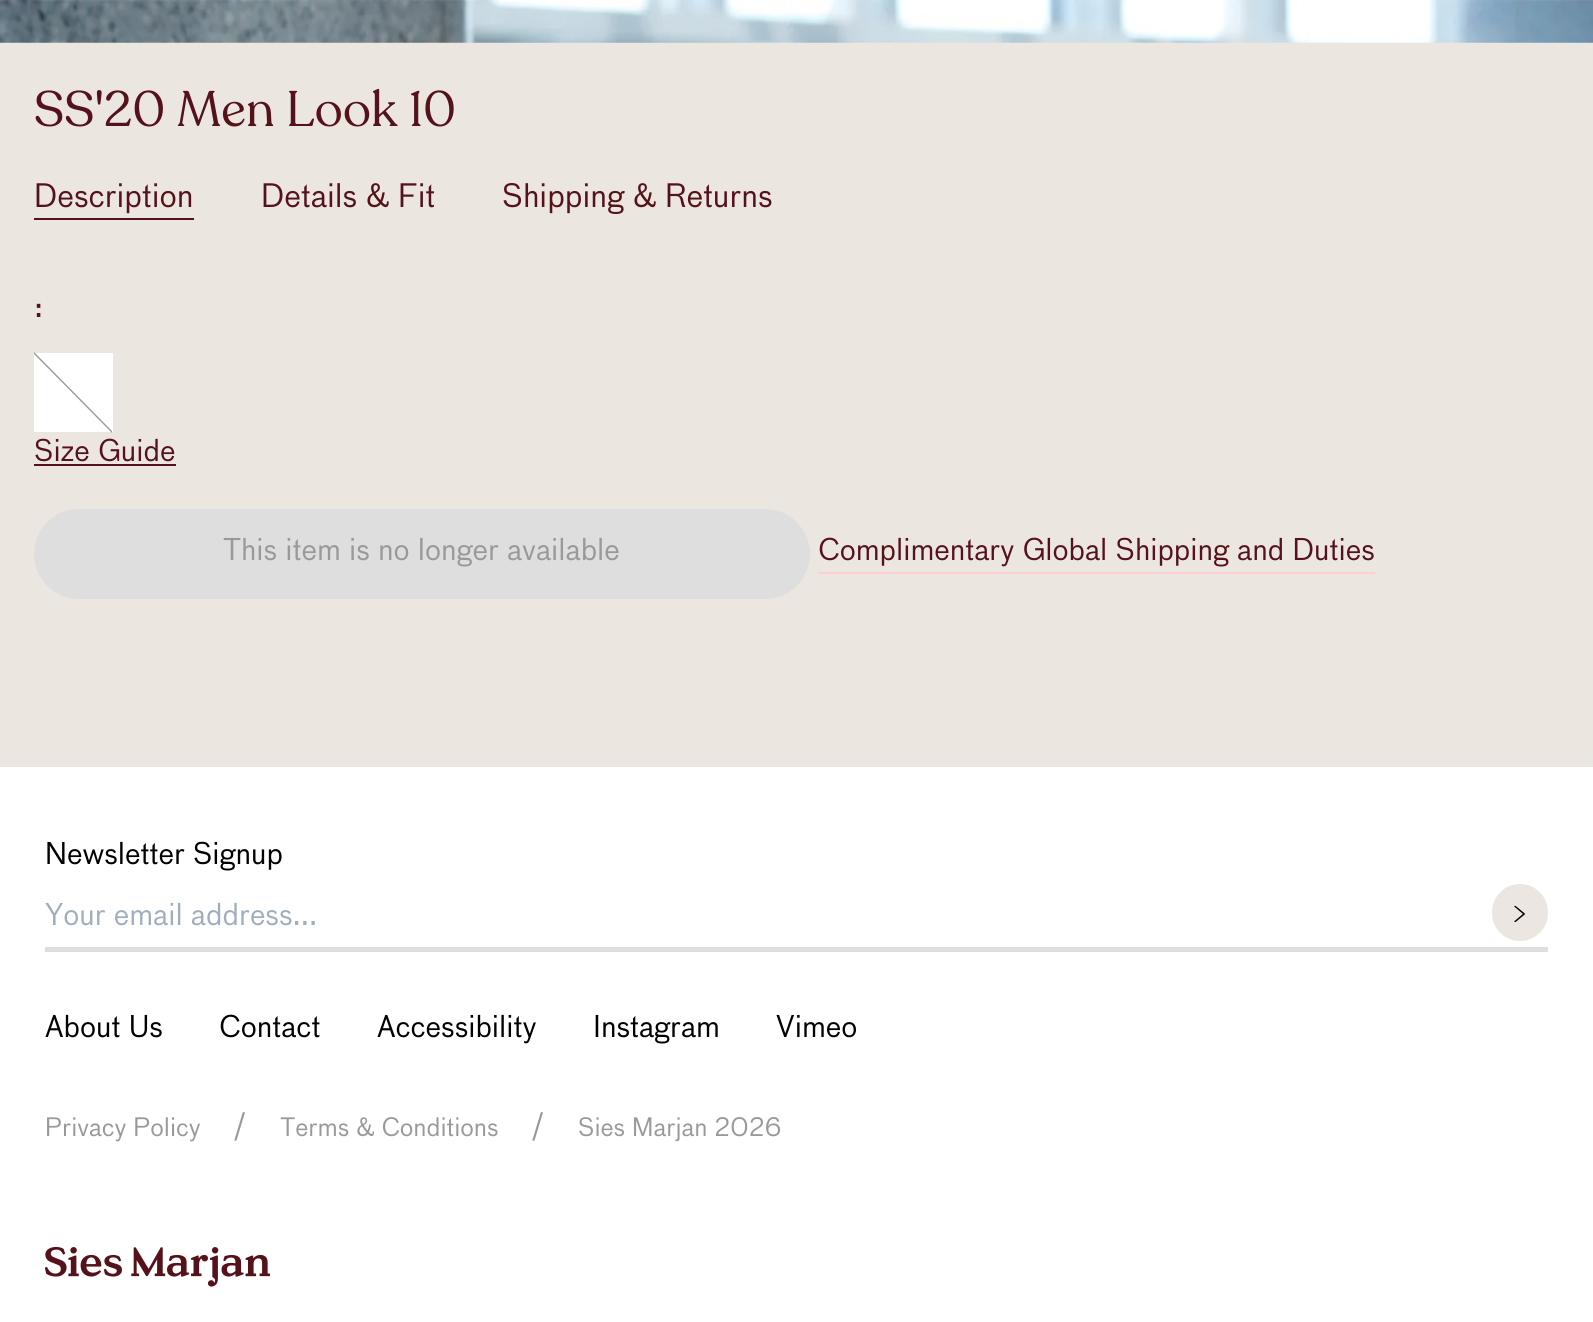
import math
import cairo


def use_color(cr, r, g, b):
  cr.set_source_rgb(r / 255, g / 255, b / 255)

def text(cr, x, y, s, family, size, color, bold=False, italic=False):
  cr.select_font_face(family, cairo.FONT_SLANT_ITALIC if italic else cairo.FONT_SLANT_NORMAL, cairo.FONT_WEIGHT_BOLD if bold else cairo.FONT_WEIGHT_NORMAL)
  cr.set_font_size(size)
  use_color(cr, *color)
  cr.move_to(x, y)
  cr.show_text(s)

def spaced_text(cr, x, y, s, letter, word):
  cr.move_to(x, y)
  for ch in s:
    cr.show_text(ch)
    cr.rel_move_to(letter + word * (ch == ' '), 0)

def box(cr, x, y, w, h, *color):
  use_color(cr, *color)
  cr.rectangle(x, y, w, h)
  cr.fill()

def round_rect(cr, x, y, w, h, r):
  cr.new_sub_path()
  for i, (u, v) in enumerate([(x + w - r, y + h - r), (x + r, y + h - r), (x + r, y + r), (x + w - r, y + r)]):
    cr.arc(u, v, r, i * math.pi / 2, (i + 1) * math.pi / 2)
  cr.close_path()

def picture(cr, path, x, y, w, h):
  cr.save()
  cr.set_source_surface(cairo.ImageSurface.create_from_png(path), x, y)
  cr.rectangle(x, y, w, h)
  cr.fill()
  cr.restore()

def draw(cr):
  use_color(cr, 235, 231, 224)
  cr.paint()
  picture(cr, "img_01.png", 0, 0, 1593, 43)
  box(cr, 34, 218, 160, 2, 86, 18, 27)
  box(cr, 34, 353, 79, 79, 255, 255, 255)
  use_color(cr, 153, 153, 153)
  cr.new_path()
  cr.move_to(34, 352)
  cr.line_to(112, 431)
  cr.line_to(112, 433)
  cr.line_to(34, 354)
  cr.close_path()
  cr.fill()
  box(cr, 34, 464, 142, 2, 86, 18, 27)
  use_color(cr, 222, 222, 222)
  round_rect(cr, 34, 509, 776, 90, 45)
  cr.fill()
  box(cr, 819, 572, 556, 2, 255, 207, 207)
  box(cr, 0, 767, 1593, 555, 255, 255, 255)
  picture(cr, "img_02.png", 45, 1246, 225, 41)
  box(cr, 45, 947, 1503, 5, 222, 222, 222)
  use_color(cr, 235, 231, 224)
  round_rect(cr, 1492, 884, 56, 57, 28)
  cr.fill()
  picture(cr, "img_03.png", 1514, 905, 11, 17)
  cr.select_font_face("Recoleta")
  cr.set_font_size(49.5)
  use_color(cr, 86, 18, 27)
  spaced_text(cr, 34, 126, "SS'20 Men Look 10", 0.25, 0)
  text(cr, 34, 207, "Description", "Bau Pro", 31.5, (86, 18, 27))
  text(cr, 261, 207, "Details & Fit", "Bau Pro", 31.5, (86, 18, 27))
  text(cr, 502, 207, "Shipping & Returns", "Bau Pro", 31.5, (86, 18, 27))
  text(cr, 34, 317, ":", "Bau Pro", 31.5, (86, 18, 27))
  text(cr, 34, 461, "Size Guide", "Bau Pro", 29.25, (86, 18, 27))
  text(cr, 223, 560, "This item is no longer available", "Bau Pro", 29.25, (153, 153, 153))
  text(cr, 818, 560, "Complimentary Global Shipping and Duties", "Bau Pro", 29.25, (86, 18, 27))
  text(cr, 45, 864, "Newsletter Signup", "Bau Pro", 29.25, (0, 0, 0))
  text(cr, 45, 925, "Your email address...", "Bau Pro", 29.25, (160, 174, 192))
  text(cr, 45, 1037, "About Us", "Bau Pro", 29.25, (0, 0, 0))
  text(cr, 219, 1037, "Contact", "Bau Pro", 29.25, (0, 0, 0))
  text(cr, 377, 1037, "Accessibility", "Bau Pro", 29.25, (0, 0, 0))
  text(cr, 593, 1037, "Instagram", "Bau Pro", 29.25, (0, 0, 0))
  text(cr, 776, 1037, "Vimeo", "Bau Pro", 29.25, (0, 0, 0))
  text(cr, 45, 1136, "Privacy Policy", "Bau Pro", 24.75, (153, 153, 153))
  text(cr, 234, 1136, "/", "Bau Pro", 29.25, (153, 153, 153))
  text(cr, 280, 1136, "Terms & Conditions", "Bau Pro", 24.75, (153, 153, 153))
  text(cr, 532, 1136, "/", "Bau Pro", 29.25, (153, 153, 153))
  text(cr, 578, 1136, "Sies Marjan 2026", "Bau Pro", 24.75, (153, 153, 153))


surface = cairo.ImageSurface(cairo.FORMAT_RGB24, 1593, 1322)
cr = cairo.Context(surface)
options = cairo.FontOptions()
options.set_hint_metrics(cairo.HINT_METRICS_OFF)
options.set_hint_style(cairo.HINT_STYLE_NONE)
cr.set_font_options(options)
cr.set_miter_limit(4)
draw(cr)
surface.write_to_png("out.png")
